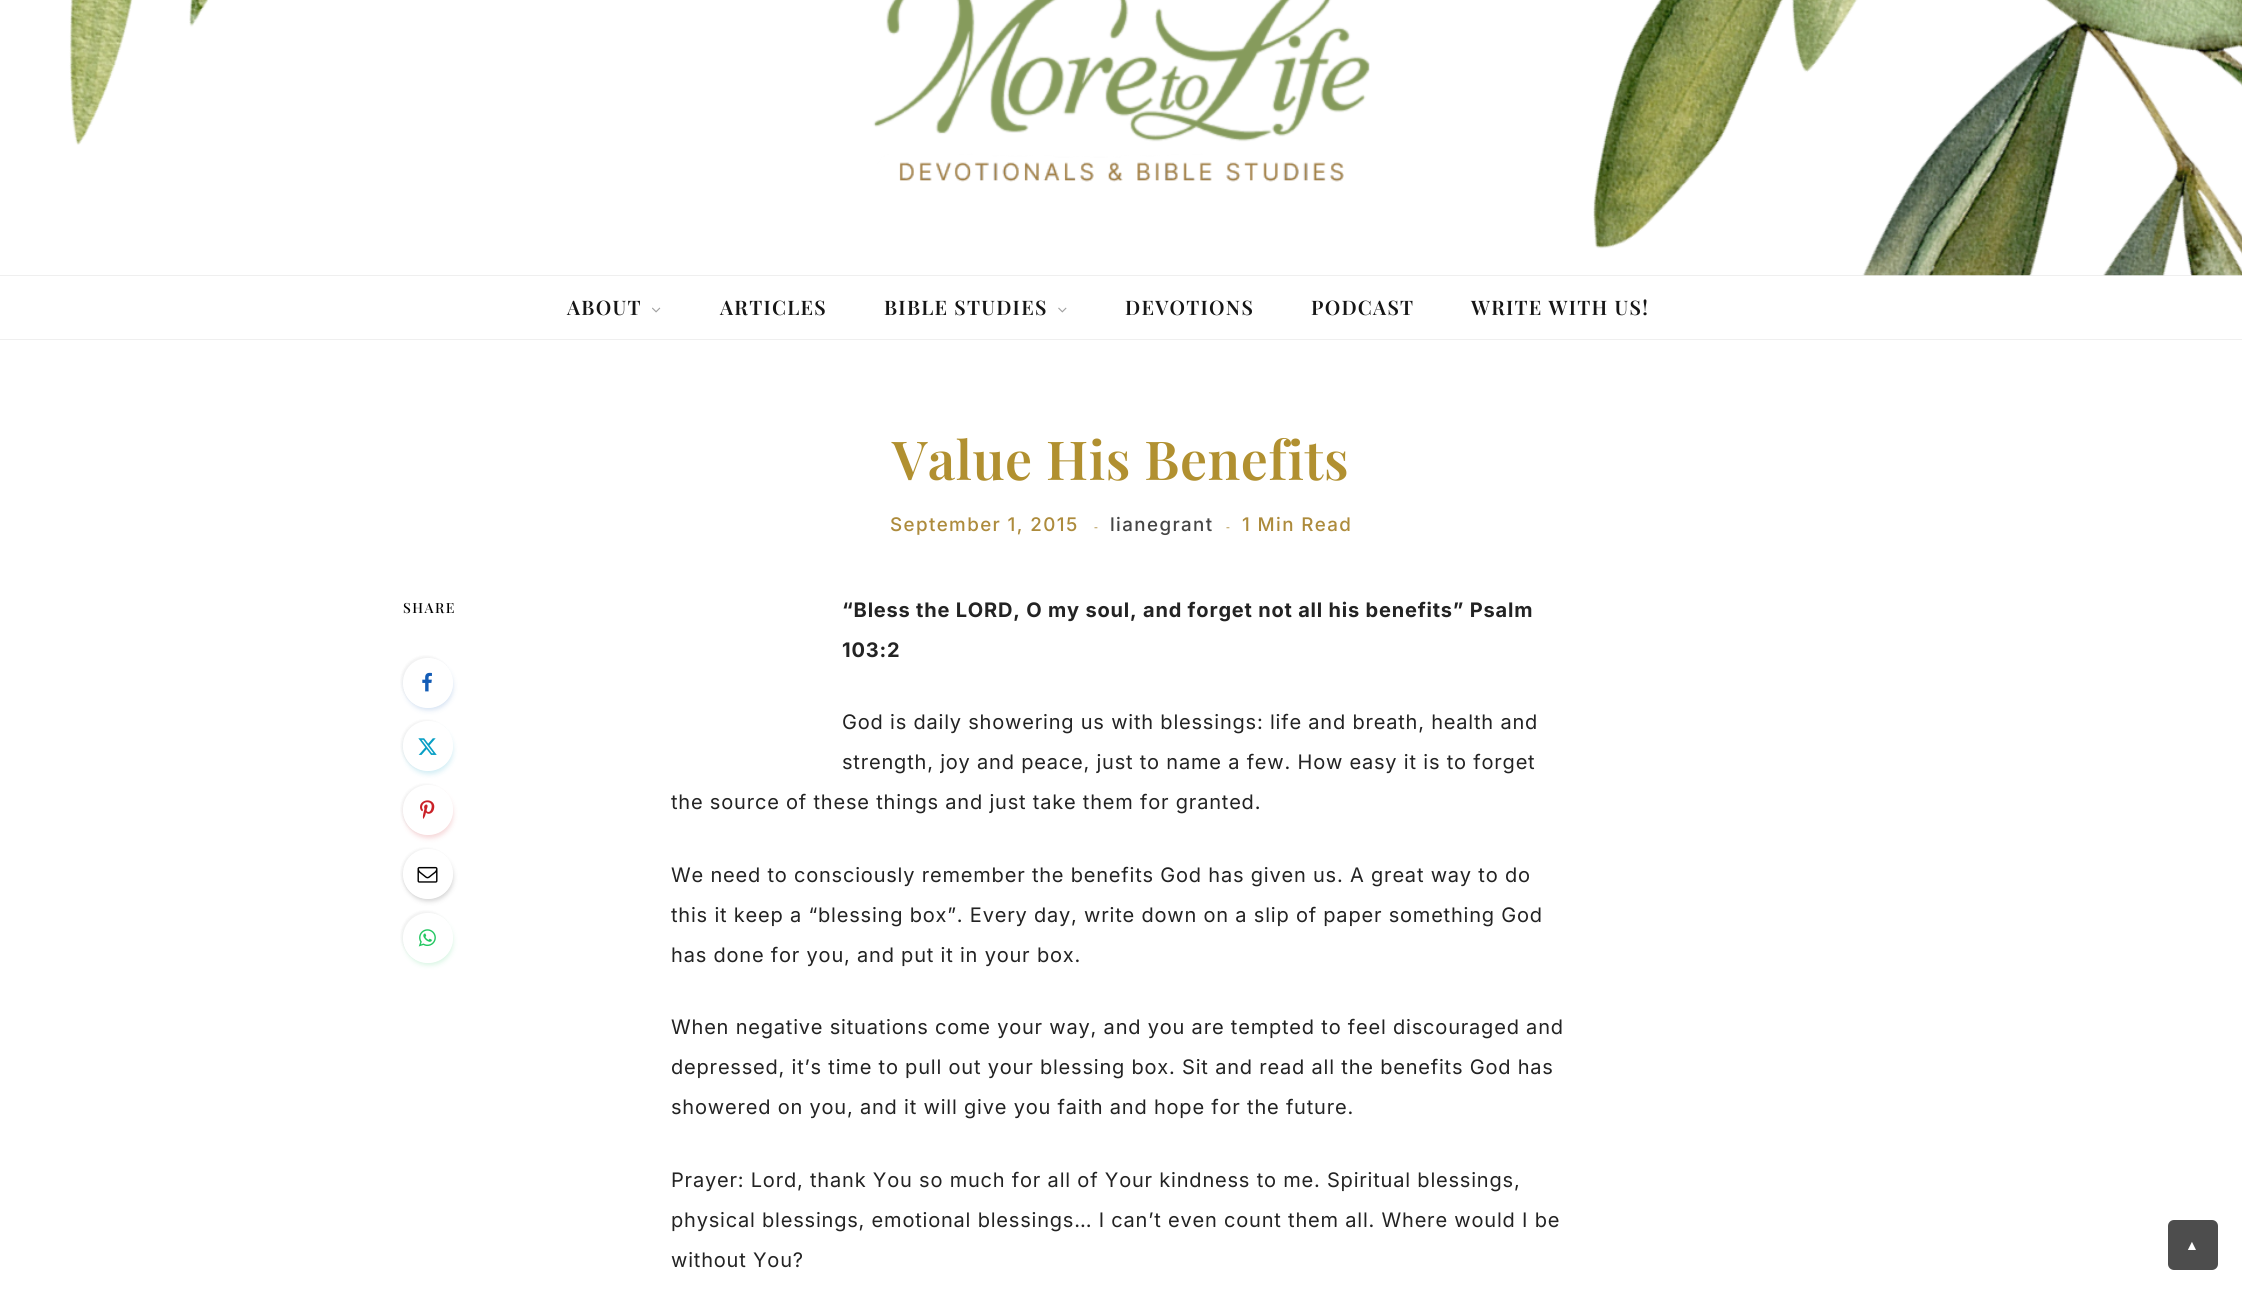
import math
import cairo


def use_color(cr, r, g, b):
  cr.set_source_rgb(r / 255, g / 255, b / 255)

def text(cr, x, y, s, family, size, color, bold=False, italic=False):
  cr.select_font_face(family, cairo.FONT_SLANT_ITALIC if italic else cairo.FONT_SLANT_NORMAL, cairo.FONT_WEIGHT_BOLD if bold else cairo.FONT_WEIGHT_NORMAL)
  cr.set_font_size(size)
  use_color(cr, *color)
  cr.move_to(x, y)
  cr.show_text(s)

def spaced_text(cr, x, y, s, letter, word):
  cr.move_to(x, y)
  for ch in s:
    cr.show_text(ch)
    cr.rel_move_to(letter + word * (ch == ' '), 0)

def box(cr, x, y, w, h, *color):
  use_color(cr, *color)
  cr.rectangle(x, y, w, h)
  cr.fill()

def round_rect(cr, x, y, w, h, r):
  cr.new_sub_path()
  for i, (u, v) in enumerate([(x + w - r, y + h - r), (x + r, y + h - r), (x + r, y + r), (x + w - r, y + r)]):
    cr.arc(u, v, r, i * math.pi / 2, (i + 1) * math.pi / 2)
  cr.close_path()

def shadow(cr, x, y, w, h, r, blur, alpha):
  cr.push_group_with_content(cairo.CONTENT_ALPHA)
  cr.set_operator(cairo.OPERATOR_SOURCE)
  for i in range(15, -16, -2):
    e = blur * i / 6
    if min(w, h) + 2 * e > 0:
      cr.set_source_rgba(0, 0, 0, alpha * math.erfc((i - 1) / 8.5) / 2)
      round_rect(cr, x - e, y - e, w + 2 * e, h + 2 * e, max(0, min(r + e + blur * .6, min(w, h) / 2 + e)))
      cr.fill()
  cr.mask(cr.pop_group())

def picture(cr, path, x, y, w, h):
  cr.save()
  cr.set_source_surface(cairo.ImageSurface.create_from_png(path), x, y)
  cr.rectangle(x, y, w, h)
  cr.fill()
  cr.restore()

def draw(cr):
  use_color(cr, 255, 255, 255)
  cr.paint()
  box(cr, 0, 275, 2242, 1, 239, 239, 239)
  picture(cr, "img_01.png", 69, 0, 2173, 276)
  picture(cr, "img_02.png", 873, 0, 497, 182)
  box(cr, 0, 339, 2242, 1, 239, 239, 239)
  picture(cr, "img_03.png", 652, 307, 9, 6)
  picture(cr, "img_04.png", 1058, 307, 9, 6)
  cr.save()
  cr.set_fill_rule(cairo.FILL_RULE_EVEN_ODD)
  cr.new_path()
  cr.move_to(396, 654)
  cr.line_to(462, 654)
  cr.line_to(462, 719)
  cr.line_to(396, 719)
  cr.close_path()
  cr.move_to(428, 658)
  cr.curve_to(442, 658, 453, 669, 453, 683)
  cr.curve_to(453, 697, 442, 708, 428, 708)
  cr.curve_to(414, 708, 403, 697, 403, 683)
  cr.curve_to(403, 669, 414, 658, 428, 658)
  cr.close_path()
  cr.clip()
  use_color(cr, 19, 92, 182)
  shadow(cr, 405, 663, 48, 47, 23.5, 2.5, 0.18)
  cr.restore()
  cr.save()
  cr.set_fill_rule(cairo.FILL_RULE_EVEN_ODD)
  cr.new_path()
  cr.move_to(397, 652)
  cr.line_to(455, 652)
  cr.line_to(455, 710)
  cr.line_to(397, 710)
  cr.close_path()
  cr.move_to(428, 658)
  cr.curve_to(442, 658, 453, 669, 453, 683)
  cr.curve_to(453, 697, 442, 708, 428, 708)
  cr.curve_to(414, 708, 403, 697, 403, 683)
  cr.curve_to(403, 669, 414, 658, 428, 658)
  cr.close_path()
  cr.clip()
  use_color(cr, 0, 0, 0)
  shadow(cr, 401, 656, 50, 50, 25, 1, 0.05)
  cr.restore()
  picture(cr, "img_05.png", 422, 672, 10, 20)
  cr.save()
  cr.set_fill_rule(cairo.FILL_RULE_EVEN_ODD)
  cr.new_path()
  cr.move_to(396, 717)
  cr.line_to(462, 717)
  cr.line_to(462, 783)
  cr.line_to(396, 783)
  cr.close_path()
  cr.move_to(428, 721)
  cr.curve_to(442, 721, 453, 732, 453, 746)
  cr.curve_to(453, 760, 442, 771, 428, 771)
  cr.curve_to(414, 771, 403, 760, 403, 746)
  cr.curve_to(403, 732, 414, 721, 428, 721)
  cr.close_path()
  cr.clip()
  use_color(cr, 8, 159, 197)
  shadow(cr, 405, 726, 48, 48, 24, 2.5, 0.18)
  cr.restore()
  cr.save()
  cr.set_fill_rule(cairo.FILL_RULE_EVEN_ODD)
  cr.new_path()
  cr.move_to(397, 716)
  cr.line_to(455, 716)
  cr.line_to(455, 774)
  cr.line_to(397, 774)
  cr.close_path()
  cr.move_to(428, 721)
  cr.curve_to(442, 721, 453, 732, 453, 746)
  cr.curve_to(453, 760, 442, 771, 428, 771)
  cr.curve_to(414, 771, 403, 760, 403, 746)
  cr.curve_to(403, 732, 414, 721, 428, 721)
  cr.close_path()
  cr.clip()
  use_color(cr, 0, 0, 0)
  shadow(cr, 401, 720, 50, 50, 25, 1, 0.05)
  cr.restore()
  picture(cr, "img_06.png", 418, 738, 19, 17)
  cr.save()
  cr.set_fill_rule(cairo.FILL_RULE_EVEN_ODD)
  cr.new_path()
  cr.move_to(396, 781)
  cr.line_to(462, 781)
  cr.line_to(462, 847)
  cr.line_to(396, 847)
  cr.close_path()
  cr.move_to(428, 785)
  cr.curve_to(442, 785, 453, 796, 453, 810)
  cr.curve_to(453, 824, 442, 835, 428, 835)
  cr.curve_to(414, 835, 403, 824, 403, 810)
  cr.curve_to(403, 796, 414, 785, 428, 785)
  cr.close_path()
  cr.clip()
  use_color(cr, 202, 33, 40)
  shadow(cr, 405, 790, 48, 48, 24, 2.5, 0.18)
  cr.restore()
  cr.save()
  cr.set_fill_rule(cairo.FILL_RULE_EVEN_ODD)
  cr.new_path()
  cr.move_to(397, 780)
  cr.line_to(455, 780)
  cr.line_to(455, 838)
  cr.line_to(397, 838)
  cr.close_path()
  cr.move_to(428, 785)
  cr.curve_to(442, 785, 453, 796, 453, 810)
  cr.curve_to(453, 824, 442, 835, 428, 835)
  cr.curve_to(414, 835, 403, 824, 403, 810)
  cr.curve_to(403, 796, 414, 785, 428, 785)
  cr.close_path()
  cr.clip()
  use_color(cr, 0, 0, 0)
  shadow(cr, 401, 784, 50, 50, 25, 1, 0.05)
  cr.restore()
  picture(cr, "img_07.png", 420, 800, 15, 19)
  cr.save()
  cr.set_fill_rule(cairo.FILL_RULE_EVEN_ODD)
  cr.new_path()
  cr.move_to(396, 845)
  cr.line_to(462, 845)
  cr.line_to(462, 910)
  cr.line_to(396, 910)
  cr.close_path()
  cr.move_to(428, 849)
  cr.curve_to(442, 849, 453, 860, 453, 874)
  cr.curve_to(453, 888, 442, 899, 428, 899)
  cr.curve_to(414, 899, 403, 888, 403, 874)
  cr.curve_to(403, 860, 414, 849, 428, 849)
  cr.close_path()
  cr.clip()
  use_color(cr, 0, 0, 0)
  shadow(cr, 405, 854, 48, 47, 23.5, 2.5, 0.18)
  cr.restore()
  cr.save()
  cr.set_fill_rule(cairo.FILL_RULE_EVEN_ODD)
  cr.new_path()
  cr.move_to(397, 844)
  cr.line_to(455, 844)
  cr.line_to(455, 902)
  cr.line_to(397, 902)
  cr.close_path()
  cr.move_to(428, 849)
  cr.curve_to(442, 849, 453, 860, 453, 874)
  cr.curve_to(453, 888, 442, 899, 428, 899)
  cr.curve_to(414, 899, 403, 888, 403, 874)
  cr.curve_to(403, 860, 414, 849, 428, 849)
  cr.close_path()
  cr.clip()
  use_color(cr, 0, 0, 0)
  shadow(cr, 401, 848, 50, 50, 25, 1, 0.05)
  cr.restore()
  picture(cr, "img_08.png", 417, 866, 21, 17)
  cr.save()
  cr.set_fill_rule(cairo.FILL_RULE_EVEN_ODD)
  cr.new_path()
  cr.move_to(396, 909)
  cr.line_to(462, 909)
  cr.line_to(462, 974)
  cr.line_to(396, 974)
  cr.close_path()
  cr.move_to(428, 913)
  cr.curve_to(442, 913, 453, 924, 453, 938)
  cr.curve_to(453, 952, 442, 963, 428, 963)
  cr.curve_to(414, 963, 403, 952, 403, 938)
  cr.curve_to(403, 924, 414, 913, 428, 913)
  cr.close_path()
  cr.clip()
  use_color(cr, 35, 199, 97)
  shadow(cr, 405, 918, 48, 47, 23.5, 2.5, 0.18)
  cr.restore()
  cr.save()
  cr.set_fill_rule(cairo.FILL_RULE_EVEN_ODD)
  cr.new_path()
  cr.move_to(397, 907)
  cr.line_to(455, 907)
  cr.line_to(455, 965)
  cr.line_to(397, 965)
  cr.close_path()
  cr.move_to(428, 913)
  cr.curve_to(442, 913, 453, 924, 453, 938)
  cr.curve_to(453, 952, 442, 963, 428, 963)
  cr.curve_to(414, 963, 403, 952, 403, 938)
  cr.curve_to(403, 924, 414, 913, 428, 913)
  cr.close_path()
  cr.clip()
  use_color(cr, 0, 0, 0)
  shadow(cr, 401, 911, 50, 50, 25, 1, 0.05)
  cr.restore()
  picture(cr, "img_09.png", 418, 929, 18, 18)
  use_color(cr, 77, 77, 77)
  round_rect(cr, 2168, 1220, 50, 50, 6)
  cr.fill()
  cr.select_font_face("Playfair Display SemiBold")
  cr.set_font_size(20)
  use_color(cr, 22, 22, 22)
  spaced_text(cr, 567, 315, "ABOUT", 1.25, 0)
  spaced_text(cr, 720, 315, "ARTICLES", 1.25, 0)
  spaced_text(cr, 884, 315, "BIBLE STUDIES", 1.25, 0)
  spaced_text(cr, 1125, 315, "DEVOTIONS", 1.25, 0)
  spaced_text(cr, 1311, 315, "PODCAST", 1.25, 0)
  spaced_text(cr, 1471, 315, "WRITE WITH US!", 1.25, 0)
  cr.set_font_size(53.75)
  use_color(cr, 177, 144, 48)
  spaced_text(cr, 892, 480, "Value His Benefits", 0.5, 0)
  cr.select_font_face("Inter Medium")
  cr.set_font_size(18.75)
  use_color(cr, 173, 139, 60)
  spaced_text(cr, 890, 531, "September 1, 2015", 1.4, 0)
  text(cr, 1094, 531, "-", "Open Sans", 12, (173, 139, 60))
  cr.select_font_face("Inter Medium")
  cr.set_font_size(18.75)
  use_color(cr, 69, 69, 69)
  spaced_text(cr, 1110, 531, "lianegrant", 1.4, 0)
  text(cr, 1226, 531, "-", "Open Sans", 12, (173, 139, 60))
  cr.select_font_face("Inter Medium")
  cr.set_font_size(18.75)
  spaced_text(cr, 1242, 531, "1 Min Read", 1.4, 0)
  cr.select_font_face("Playfair Display Medium")
  cr.set_font_size(14)
  use_color(cr, 0, 0, 0)
  spaced_text(cr, 403, 613, "SHARE", 1.5, 0)
  cr.select_font_face("Inter", cairo.FONT_SLANT_NORMAL, cairo.FONT_WEIGHT_BOLD)
  cr.set_font_size(20)
  use_color(cr, 35, 35, 35)
  spaced_text(cr, 842, 617, "“Bless the LORD, O my soul, and forget not all his benefits” Psalm", 0.8, 0)
  spaced_text(cr, 842, 657, "103:2", 0.8, 0)
  cr.select_font_face("Inter")
  spaced_text(cr, 842, 729, "God is daily showering us with blessings: life and breath, health and", 0.8, 0)
  spaced_text(cr, 842, 769, "strength, joy and peace, just to name a few. How easy it is to forget", 0.8, 0)
  spaced_text(cr, 671, 809, "the source of these things and just take them for granted.", 0.8, 0)
  spaced_text(cr, 671, 882, "We need to consciously remember the benefits God has given us. A great way to do", 0.8, 0)
  spaced_text(cr, 671, 922, "this it keep a “blessing box”. Every day, write down on a slip of paper something God", 0.8, 0)
  spaced_text(cr, 671, 962, "has done for you, and put it in your box.", 0.8, 0)
  spaced_text(cr, 671, 1034, "When negative situations come your way, and you are tempted to feel discouraged and", 0.8, 0)
  spaced_text(cr, 671, 1074, "depressed, it’s time to pull out your blessing box. Sit and read all the benefits God has", 0.8, 0)
  spaced_text(cr, 671, 1114, "showered on you, and it will give you faith and hope for the future.", 0.8, 0)
  spaced_text(cr, 671, 1187, "Prayer: Lord, thank You so much for all of Your kindness to me. Spiritual blessings,", 0.8, 0)
  spaced_text(cr, 671, 1227, "physical blessings, emotional blessings… I can’t even count them all. Where would I be", 0.8, 0)
  spaced_text(cr, 671, 1267, "without You?", 0.8, 0)
  cr.select_font_face("Liberation Sans", cairo.FONT_SLANT_NORMAL, cairo.FONT_WEIGHT_BOLD)
  cr.set_font_size(14)
  use_color(cr, 255, 255, 255)
  spaced_text(cr, 2185, 1250, "▲", 1.25, 0)


surface = cairo.ImageSurface(cairo.FORMAT_RGB24, 2242, 1295)
cr = cairo.Context(surface)
options = cairo.FontOptions()
options.set_hint_metrics(cairo.HINT_METRICS_OFF)
options.set_hint_style(cairo.HINT_STYLE_NONE)
cr.set_font_options(options)
cr.set_miter_limit(4)
draw(cr)
surface.write_to_png("out.png")
